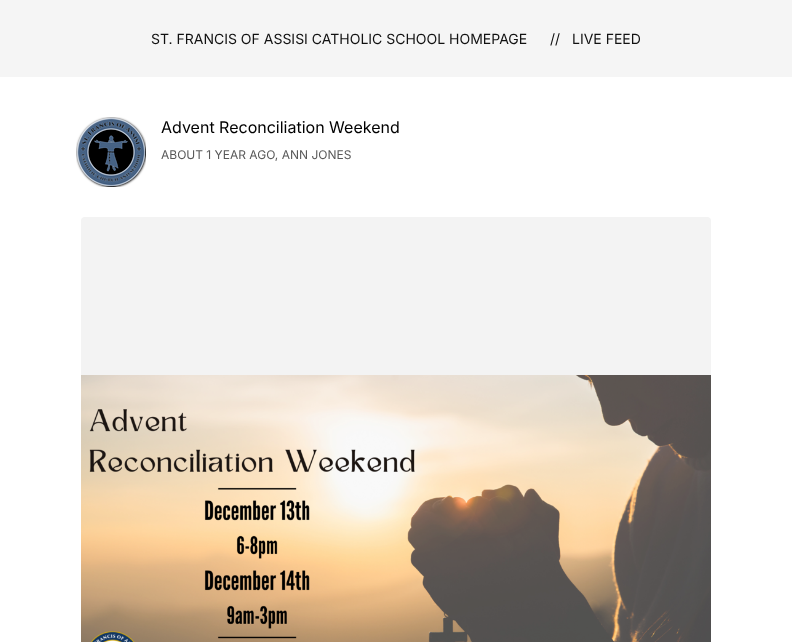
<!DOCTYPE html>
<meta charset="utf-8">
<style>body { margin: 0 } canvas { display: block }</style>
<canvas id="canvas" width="792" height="642"></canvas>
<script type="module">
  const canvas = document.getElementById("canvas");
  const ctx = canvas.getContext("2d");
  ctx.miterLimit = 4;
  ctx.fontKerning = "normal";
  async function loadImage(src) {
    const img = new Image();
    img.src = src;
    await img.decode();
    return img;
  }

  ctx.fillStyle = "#ffffff";
  ctx.fillRect(0, 0, 792, 642);
  ctx.fillStyle = "#f5f5f5";
  ctx.fillRect(0, 0, 792, 77);
  ctx.font = "14px Inter";
  ctx.fillStyle = "#111111";
  ctx.fillText("ST. FRANCIS OF ASSISI CATHOLIC SCHOOL HOMEPAGE", 151, 44);
  ctx.fillText("//", 550, 44);
  ctx.fillText("LIVE FEED", 572, 44);
  ctx.drawImage(await loadImage("img1.png"), 76, 117, 70, 70);
  ctx.font = "16px Inter";
  ctx.fillStyle = "#000000";
  ctx.fillText("Advent Reconciliation Weekend", 161, 133);
  ctx.font = "12px Inter";
  ctx.fillStyle = "#595959";
  ctx.fillText("ABOUT 1 YEAR AGO, ANN JONES", 161, 159);
  ctx.fillStyle = "#f3f3f3";
  ctx.beginPath();
  ctx.roundRect(81, 217, 630, 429, 4);
  ctx.fill();
  ctx.drawImage(await loadImage("img2.png"), 81, 375, 630, 267);
</script>
